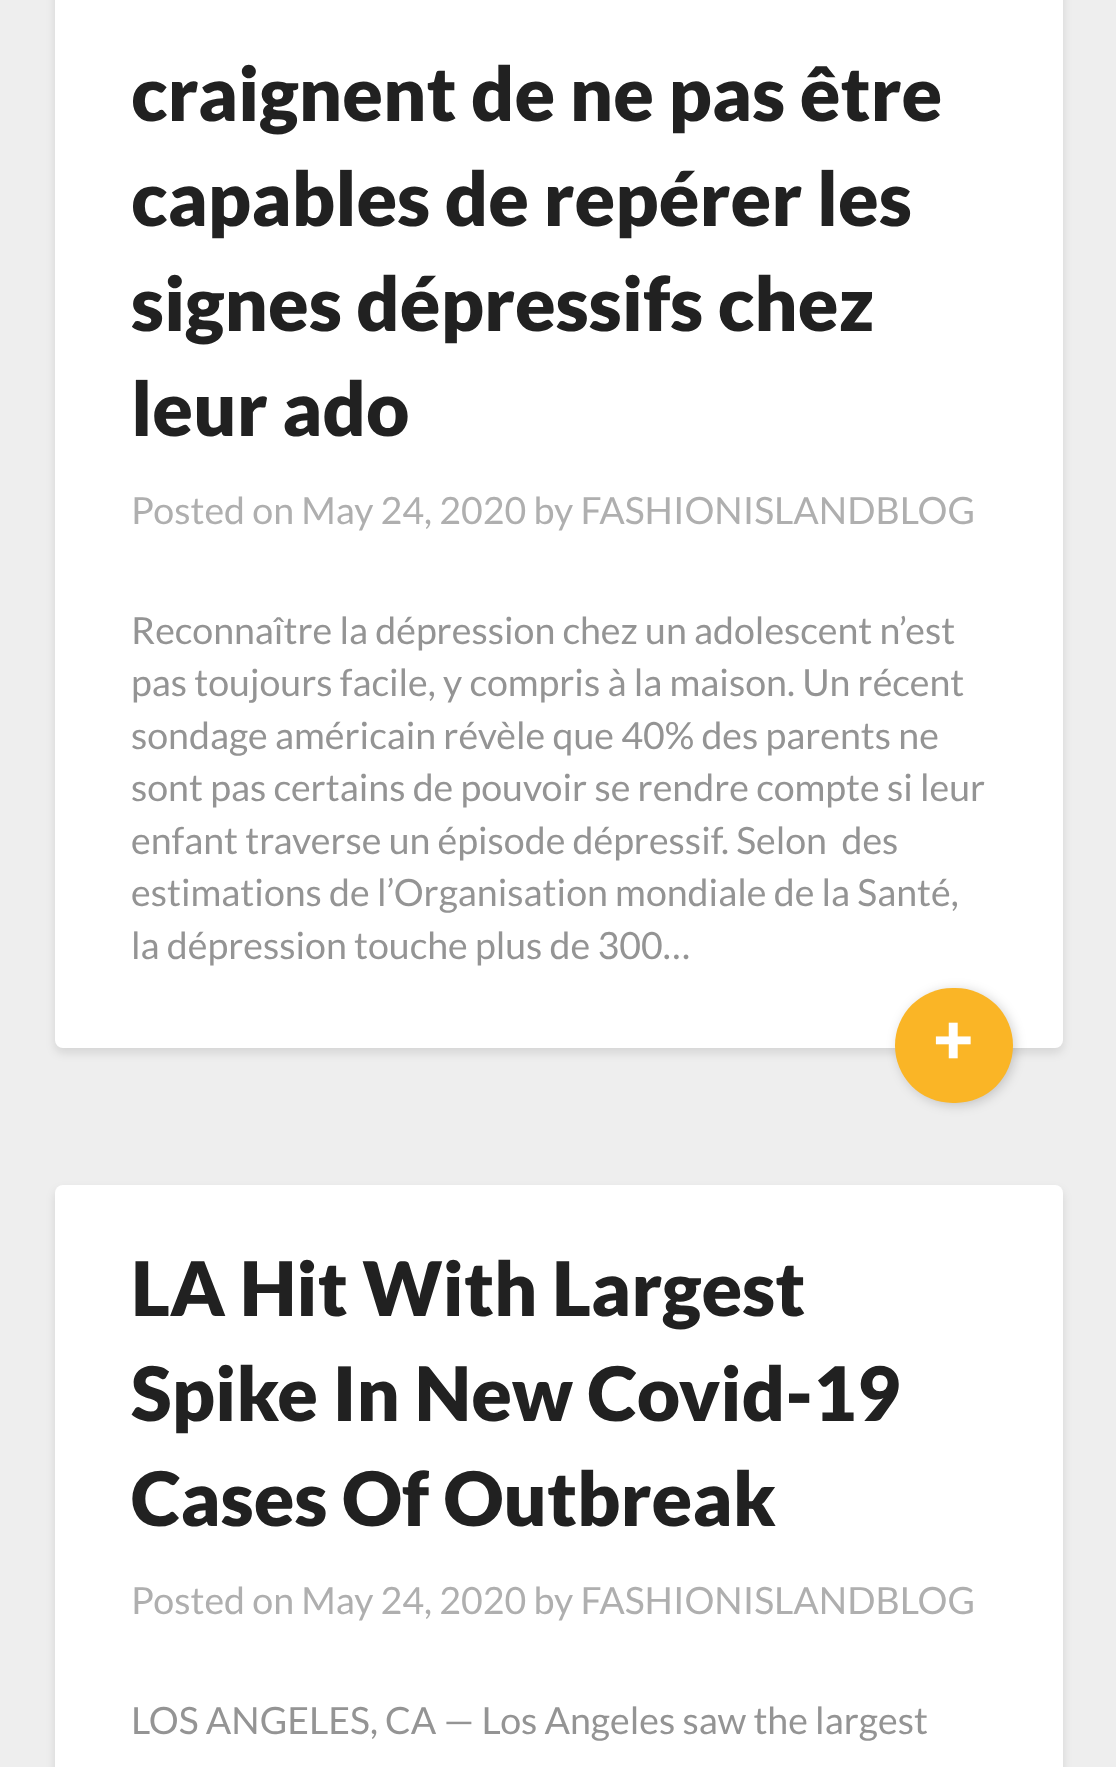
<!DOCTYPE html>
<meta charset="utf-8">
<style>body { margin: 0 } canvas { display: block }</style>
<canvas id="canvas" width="1116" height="1767"></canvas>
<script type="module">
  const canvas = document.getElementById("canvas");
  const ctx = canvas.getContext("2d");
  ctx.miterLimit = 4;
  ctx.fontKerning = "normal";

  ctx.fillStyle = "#eeeeee";
  ctx.fillRect(0, 0, 1116, 1767);
  ctx.fillStyle = "rgba(0, 0, 0, 0.1)";
  ctx.filter = "blur(5px)";
  ctx.beginPath();
  ctx.roundRect(55, -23, 1008, 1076, 8);
  ctx.fill();
  ctx.filter = "none";
  ctx.fillStyle = "#ffffff";
  ctx.beginPath();
  ctx.roundRect(55, -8, 1008, 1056, 8);
  ctx.fill();
  ctx.font = "900 75px Lato";
  ctx.fillStyle = "#212121";
  ctx.fillText("craignent de ne pas être", 131, 121);
  ctx.fillText("capables de repérer les", 131, 226);
  ctx.fillText("signes dépressifs chez", 131, 331);
  ctx.fillText("leur ado", 131, 436);
  ctx.font = "37.5px Lato";
  ctx.fillStyle = "#afafaf";
  ctx.fillText("Posted on May 24, 2020 by FASHIONISLANDBLOG", 131, 524);
  ctx.fillStyle = "#949494";
  ctx.fillText("Reconnaître la dépression chez un adolescent n’est", 131, 644);
  ctx.fillText("pas toujours facile, y compris à la maison. Un récent", 131, 696);
  ctx.fillText("sondage américain révèle que 40% des parents ne", 131, 749);
  ctx.fillText("sont pas certains de pouvoir se rendre compte si leur", 131, 801);
  ctx.fillText("enfant traverse un épisode dépressif. Selon  des", 131, 854);
  ctx.fillText("estimations de l’Organisation mondiale de la Santé,", 131, 906);
  ctx.fillText("la dépression touche plus de 300…", 131, 959);
  ctx.fillStyle = "rgba(0, 0, 0, 0.19)";
  ctx.filter = "blur(6px)";
  ctx.beginPath();
  ctx.roundRect(898, 990, 117, 115, 57.5);
  ctx.fill();
  ctx.filter = "none";
  ctx.fillStyle = "#fab526";
  ctx.beginPath();
  ctx.roundRect(895, 988, 118, 115, 57.5);
  ctx.fill();
  ctx.font = "900 70px Lato";
  ctx.fillStyle = "#ffffff";
  ctx.fillText("+", 933, 1064);
  ctx.fillStyle = "rgba(0, 0, 0, 0.1)";
  ctx.filter = "blur(5px)";
  ctx.beginPath();
  ctx.roundRect(55, 1190, 1008, 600, 8);
  ctx.fill();
  ctx.filter = "none";
  ctx.fillStyle = "#ffffff";
  ctx.beginPath();
  ctx.roundRect(55, 1185, 1008, 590, 8);
  ctx.fill();
  ctx.font = "900 75px Lato";
  ctx.fillStyle = "#212121";
  ctx.fillText("LA Hit With Largest", 131, 1316);
  ctx.fillText("Spike In New Covid-19", 131, 1421);
  ctx.fillText("Cases Of Outbreak", 131, 1526);
  ctx.font = "37.5px Lato";
  ctx.fillStyle = "#afafaf";
  ctx.fillText("Posted on May 24, 2020 by FASHIONISLANDBLOG", 131, 1614);
  ctx.fillStyle = "#949494";
  ctx.fillText("LOS ANGELES, CA — Los Angeles saw the largest", 131, 1734);
</script>
